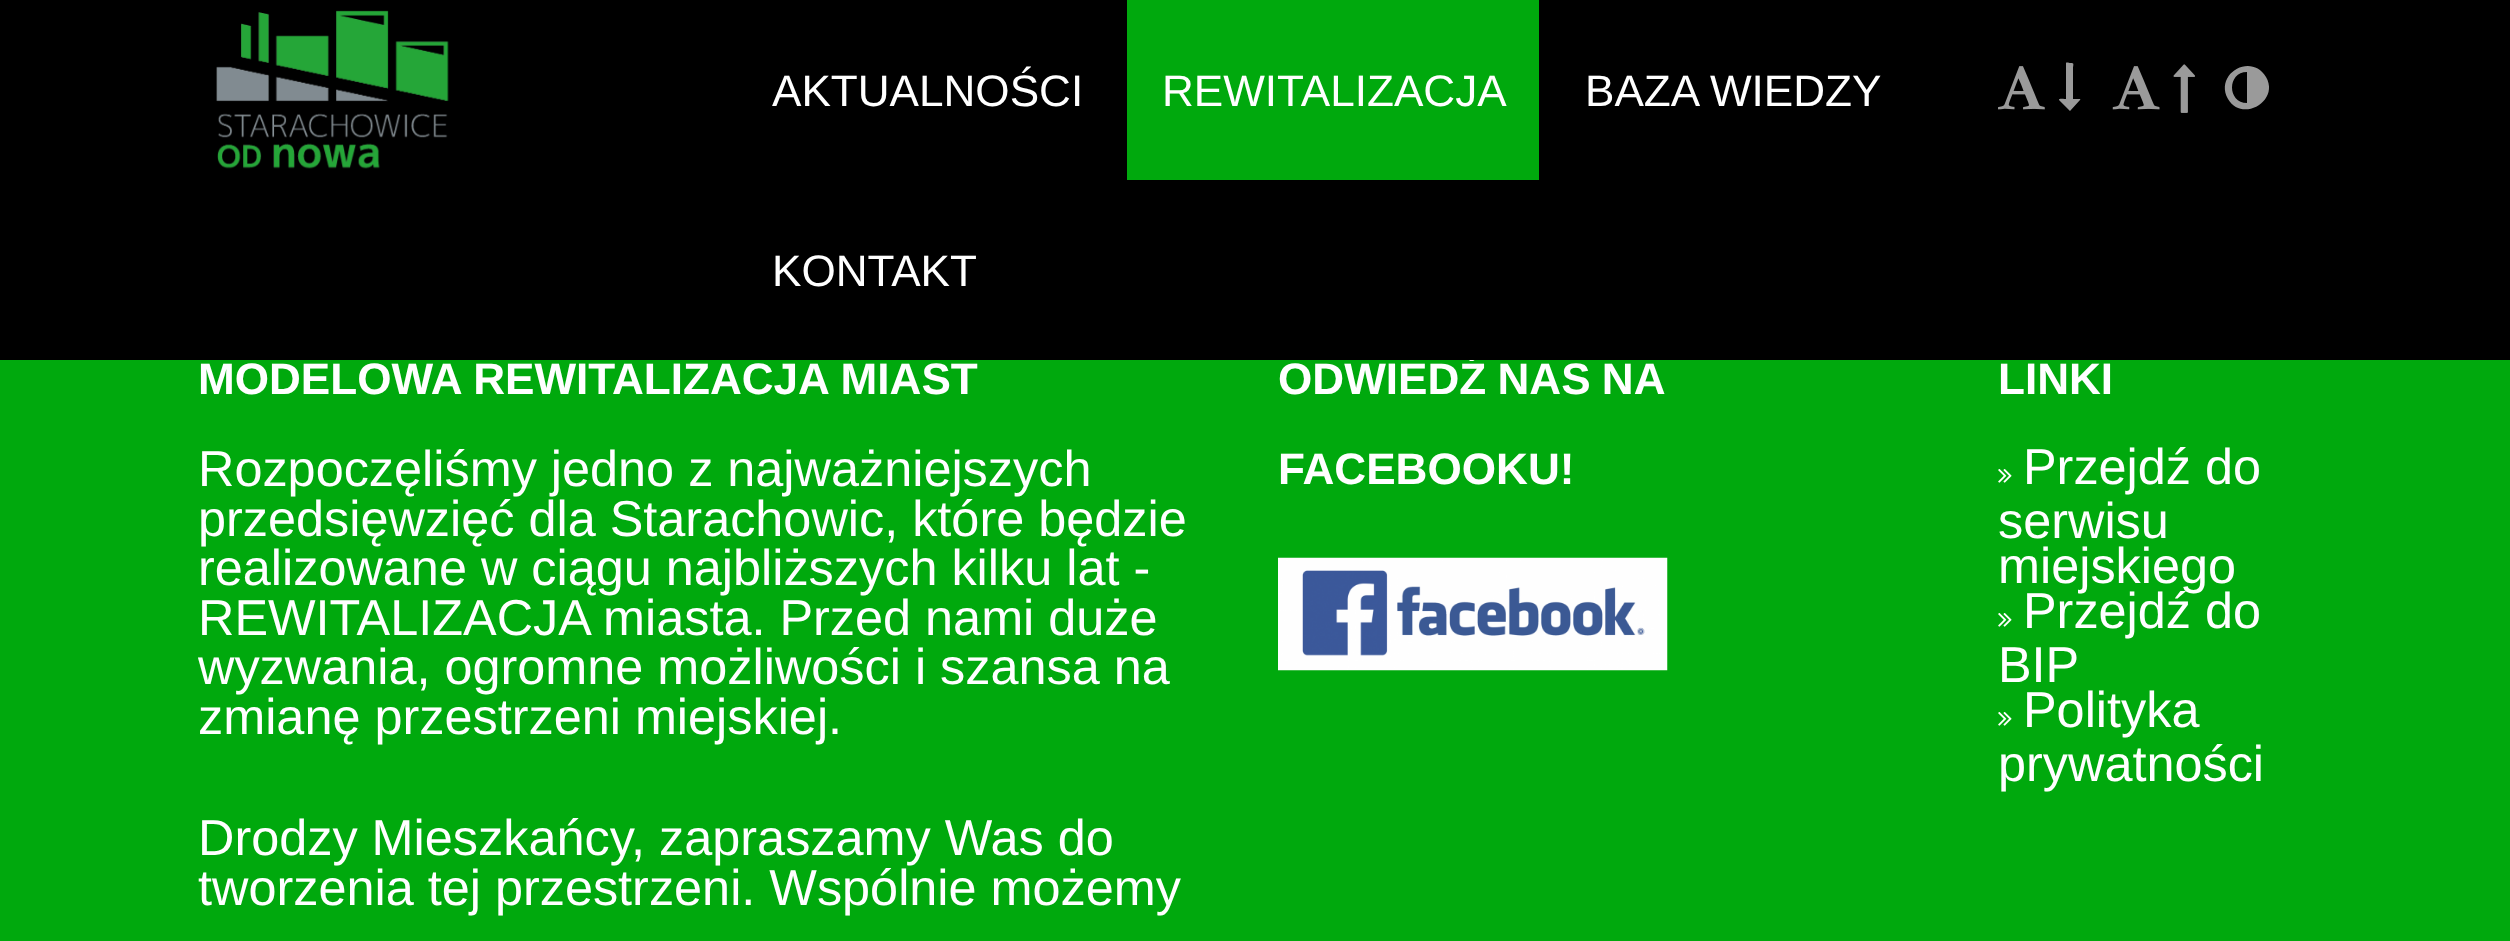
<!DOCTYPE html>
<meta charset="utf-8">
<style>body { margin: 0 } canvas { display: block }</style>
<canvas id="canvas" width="2510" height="941"></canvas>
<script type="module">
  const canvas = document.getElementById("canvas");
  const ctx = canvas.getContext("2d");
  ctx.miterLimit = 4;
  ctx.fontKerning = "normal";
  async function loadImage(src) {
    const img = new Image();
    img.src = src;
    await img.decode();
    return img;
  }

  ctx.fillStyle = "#00a90d";
  ctx.fillRect(0, 0, 2510, 941);
  ctx.wordSpacing = "-1px";
  ctx.font = "bold 44.1px Liberation Sans";
  ctx.fillStyle = "#ffffff";
  ctx.fillText("ODWIEDŹ NAS NA", 1278, 394);
  ctx.fillStyle = "#000000";
  ctx.fillRect(0, 0, 2510, 360);
  ctx.drawImage(await loadImage("img1.png"), 216, 10, 233, 159);
  ctx.wordSpacing = "0px";
  ctx.font = "44.1px Liberation Sans";
  ctx.fillStyle = "#ffffff";
  ctx.fillText("AKTUALNOŚCI", 772, 106);
  ctx.fillStyle = "#00a90d";
  ctx.fillRect(1127, 0, 412, 180);
  ctx.fillStyle = "#ffffff";
  ctx.fillText("REWITALIZACJA", 1162, 106);
  ctx.fillText("BAZA WIEDZY", 1585, 106);
  ctx.fillText("KONTAKT", 772, 286);
  ctx.drawImage(await loadImage("img2.png"), 1998, 66, 47, 44);
  ctx.fillStyle = "#9a9a9a";
  ctx.beginPath();
  ctx.moveTo(2079, 99);
  ctx.bezierCurveTo(2080, 99, 2081, 99, 2080, 100);
  ctx.lineTo(2070, 111);
  ctx.lineTo(2059, 100);
  ctx.bezierCurveTo(2058, 98, 2065, 99, 2066, 99);
  ctx.lineTo(2066, 63);
  ctx.bezierCurveTo(2066, 62, 2070, 63, 2070, 63);
  ctx.bezierCurveTo(2075, 63, 2073, 64, 2073, 69);
  ctx.lineTo(2073, 99);
  ctx.closePath();
  ctx.fill();
  ctx.drawImage(await loadImage("img3.png"), 2112, 66, 48, 44);
  ctx.drawImage(await loadImage("img4.png"), 2173, 64, 22, 49);
  ctx.beginPath();
  ctx.moveTo(2247, 103);
  ctx.lineTo(2247, 72);
  ctx.bezierCurveTo(2227, 72, 2227, 103, 2247, 103);
  ctx.closePath();
  ctx.moveTo(2266, 77);
  ctx.bezierCurveTo(2280, 101, 2242, 123, 2228, 99);
  ctx.bezierCurveTo(2214, 74, 2251, 52, 2266, 77);
  ctx.closePath();
  ctx.fill();
  ctx.font = "bold 44.1px Liberation Sans";
  ctx.fillStyle = "#ffffff";
  ctx.fillText("MODELOWA REWITALIZACJA MIAST", 198, 394);
  ctx.font = "50.4px Liberation Sans";
  ctx.fillText("Rozpoczęliśmy jedno z najważniejszych", 198, 486);
  ctx.fillText("przedsięwzięć dla Starachowic, które będzie", 198, 536);
  ctx.fillText("realizowane w ciągu najbliższych kilku lat -", 198, 585);
  ctx.fillText("REWITALIZACJA miasta. Przed nami duże", 198, 635);
  ctx.fillText("wyzwania, ogromne możliwości i szansa na", 198, 684);
  ctx.fillText("zmianę przestrzeni miejskiej.", 198, 734);
  ctx.fillText("Drodzy Mieszkańcy, zapraszamy Was do", 198, 855);
  ctx.fillText("tworzenia tej przestrzeni. Wspólnie możemy", 198, 905);
  ctx.font = "bold 44.1px Liberation Sans";
  ctx.fillText("FACEBOOKU!", 1278, 484);
  ctx.drawImage(await loadImage("img5.png"), 1278, 557, 390, 114);
  ctx.fillText("LINKI", 1998, 394);
  ctx.drawImage(await loadImage("img6.png"), 1998, 469, 14, 14);
  ctx.font = "50.4px Liberation Sans";
  ctx.fillText("Przejdź do", 2023, 484);
  ctx.fillText("serwisu", 1998, 538);
  ctx.fillText("miejskiego", 1998, 583);
  ctx.drawImage(await loadImage("img6.png"), 1998, 613, 14, 14);
  ctx.fillText("Przejdź do", 2023, 628);
  ctx.fillText("BIP", 1998, 682);
  ctx.drawImage(await loadImage("img6.png"), 1998, 712, 14, 14);
  ctx.fillText("Polityka", 2023, 727);
  ctx.fillText("prywatności", 1998, 781);
</script>
